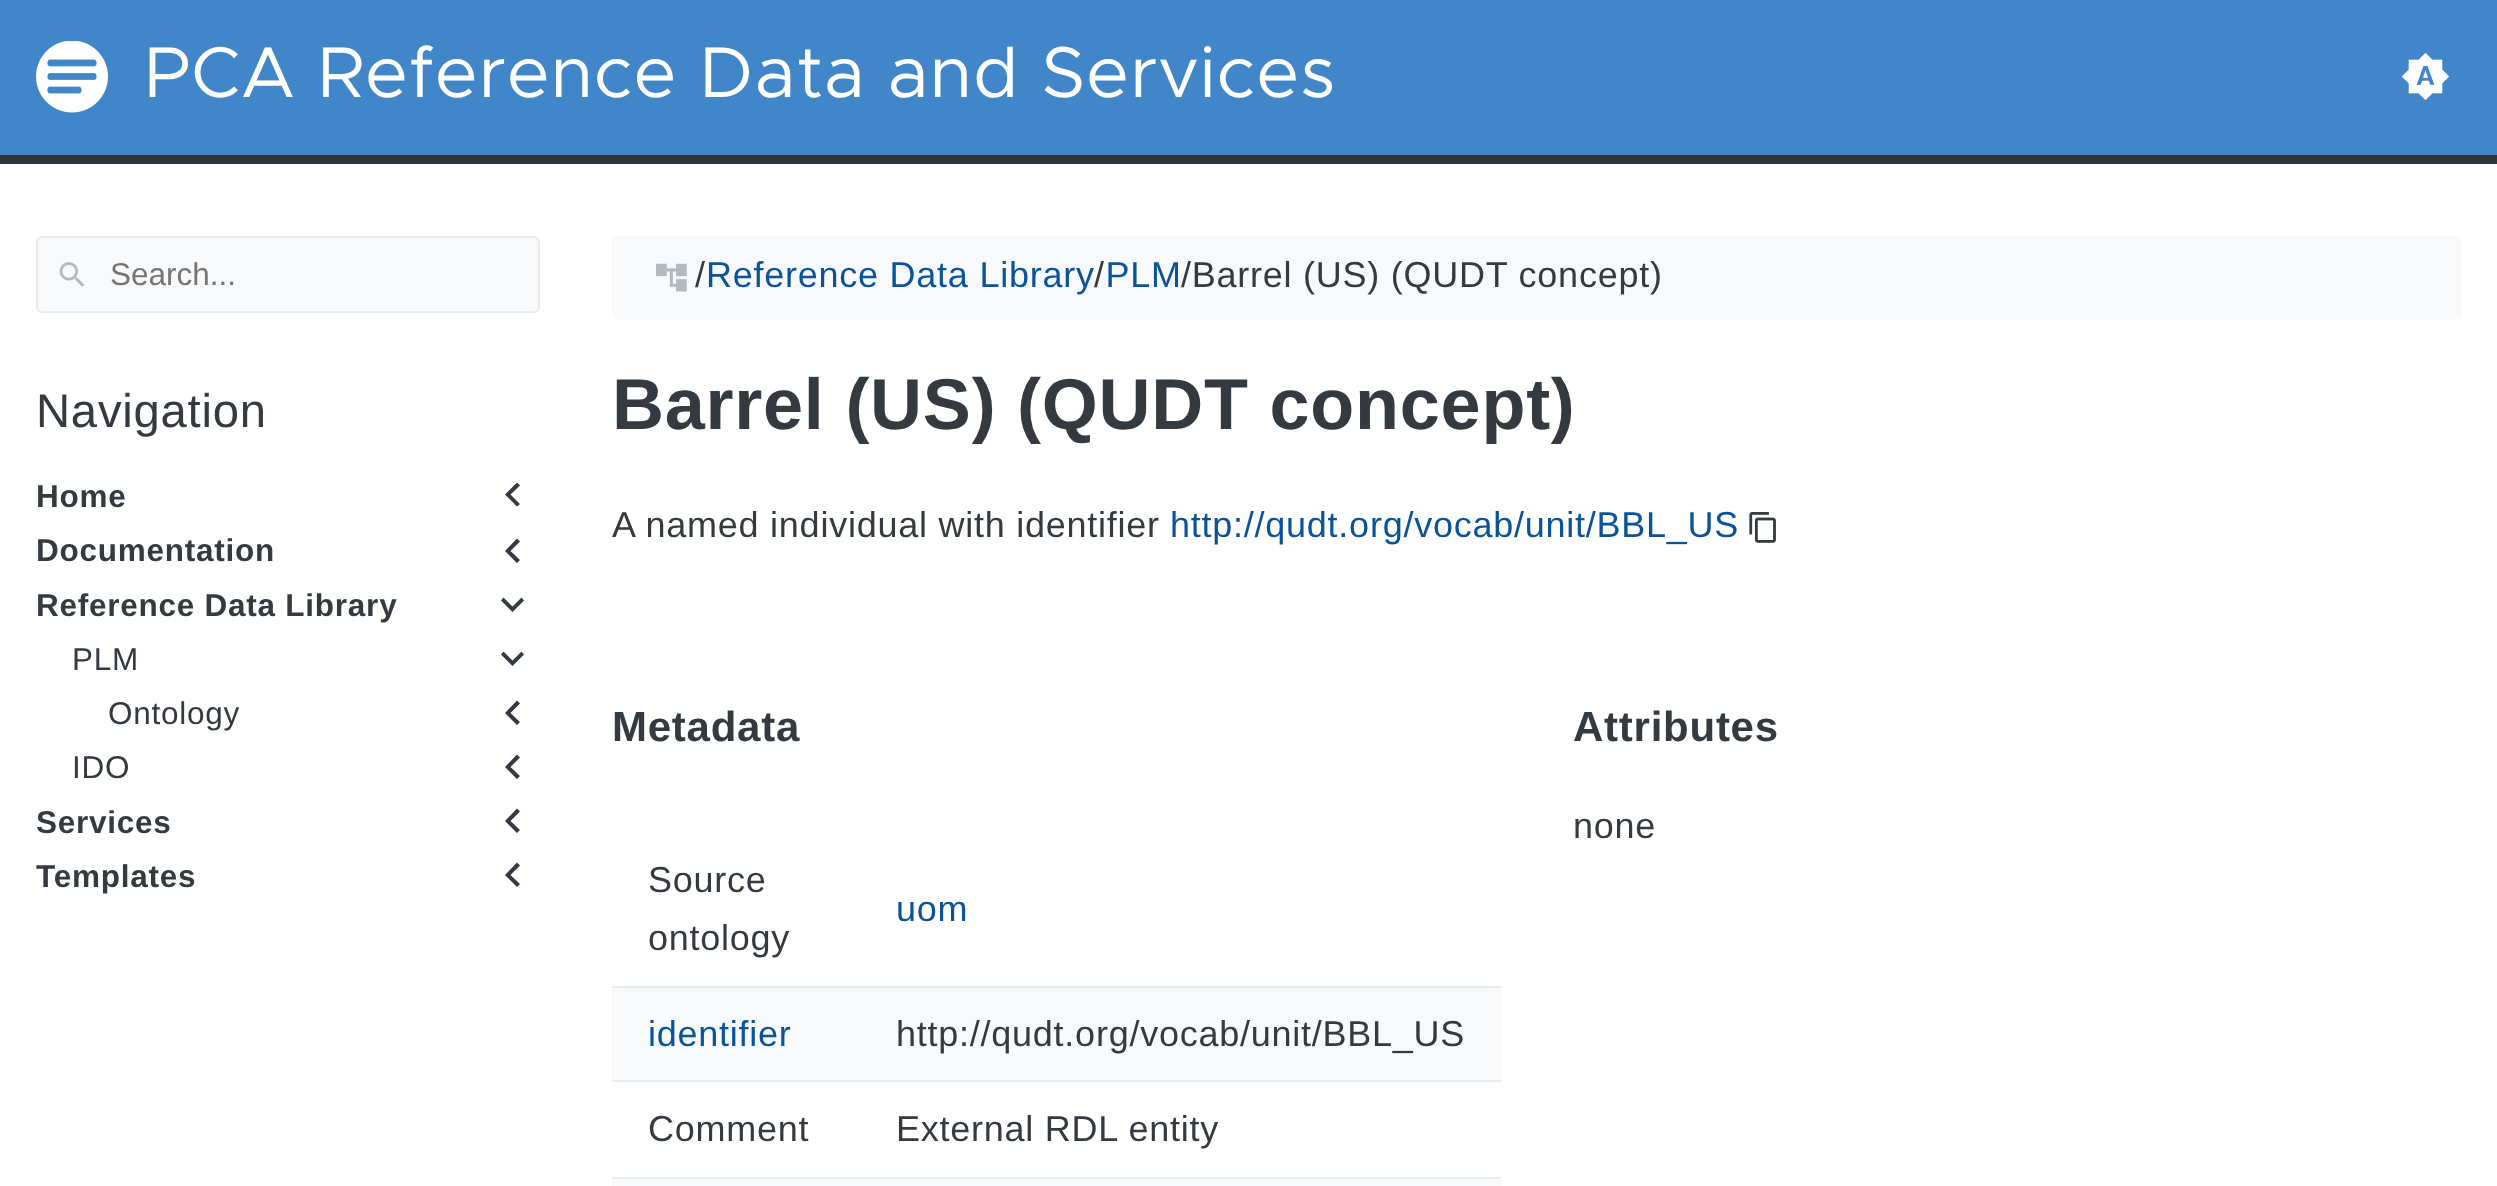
<!DOCTYPE html>
<meta charset="utf-8">
<style>body { margin: 0 } canvas { display: block }</style>
<canvas id="canvas" width="2497" height="1186"></canvas>
<script type="module">
  const canvas = document.getElementById("canvas");
  const ctx = canvas.getContext("2d");
  ctx.miterLimit = 4;
  ctx.fontKerning = "normal";
  async function loadImage(src) {
    const img = new Image();
    img.src = src;
    await img.decode();
    return img;
  }

  ctx.fillStyle = "#ffffff";
  ctx.fillRect(0, 0, 2497, 1186);
  ctx.fillStyle = "#4186c9";
  ctx.fillRect(0, 0, 2497, 155);
  ctx.fillStyle = "#2f333e";
  ctx.fillRect(0, 155, 2497, 9);
  ctx.drawImage(await loadImage("img1.png"), 36, 41, 72, 72);
  ctx.letterSpacing = "0.75px";
  ctx.font = "72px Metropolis";
  ctx.fillStyle = "#ffffff";
  ctx.fillText("PCA Reference Data and Services", 144, 97);
  ctx.drawImage(await loadImage("img2.png"), 2401, 52, 49, 49);
  ctx.fillStyle = "#f8f9fa";
  ctx.beginPath();
  ctx.roundRect(37, 237, 502, 75, 5);
  ctx.fill();
  ctx.strokeStyle = "#e9ecef";
  ctx.lineWidth = 2;
  ctx.stroke();
  ctx.drawImage(await loadImage("img3.png"), 59, 262, 26, 25);
  ctx.letterSpacing = "0px";
  ctx.font = "31.5px Liberation Sans";
  ctx.fillStyle = "#757575";
  ctx.fillText("Search...", 110, 285);
  ctx.letterSpacing = "0.75px";
  ctx.font = "47.25px Liberation Sans";
  ctx.fillStyle = "#343a40";
  ctx.fillText("Navigation", 36, 427);
  ctx.font = "bold 31.5px Liberation Sans";
  ctx.fillText("Home", 36, 507);
  ctx.beginPath();
  ctx.moveTo(520, 504);
  ctx.lineTo(517, 506.5);
  ctx.lineTo(505, 494.5);
  ctx.lineTo(517, 482.5);
  ctx.lineTo(520, 485.5);
  ctx.lineTo(510.5, 494.5);
  ctx.closePath();
  ctx.fill();
  ctx.fillText("Documentation", 36, 561);
  ctx.beginPath();
  ctx.moveTo(520, 560);
  ctx.lineTo(517, 563);
  ctx.lineTo(505, 551);
  ctx.lineTo(517, 538.5);
  ctx.lineTo(520, 541.5);
  ctx.lineTo(510.5, 551);
  ctx.closePath();
  ctx.fill();
  ctx.fillText("Reference Data Library", 36, 616);
  ctx.beginPath();
  ctx.moveTo(503.5, 597.5);
  ctx.lineTo(512.5, 606.5);
  ctx.lineTo(521.5, 597.5);
  ctx.lineTo(524, 600.5);
  ctx.lineTo(512.5, 612);
  ctx.lineTo(501, 600.5);
  ctx.closePath();
  ctx.fill();
  ctx.font = "31.5px Liberation Sans";
  ctx.fillText("PLM", 72, 670);
  ctx.beginPath();
  ctx.moveTo(503.5, 651.5);
  ctx.lineTo(512.5, 660.5);
  ctx.lineTo(521.5, 651.5);
  ctx.lineTo(524, 654.5);
  ctx.lineTo(512.5, 666);
  ctx.lineTo(501, 654.5);
  ctx.closePath();
  ctx.fill();
  ctx.fillText("Ontology", 108, 724);
  ctx.beginPath();
  ctx.moveTo(520, 722);
  ctx.lineTo(517, 725);
  ctx.lineTo(505, 713);
  ctx.lineTo(517, 700.5);
  ctx.lineTo(520, 703.5);
  ctx.lineTo(510.5, 713);
  ctx.closePath();
  ctx.fill();
  ctx.fillText("IDO", 72, 778);
  ctx.beginPath();
  ctx.moveTo(520, 776);
  ctx.lineTo(517, 779);
  ctx.lineTo(505, 767);
  ctx.lineTo(517, 754.5);
  ctx.lineTo(520, 757.5);
  ctx.lineTo(510.5, 767);
  ctx.closePath();
  ctx.fill();
  ctx.font = "bold 31.5px Liberation Sans";
  ctx.fillText("Services", 36, 833);
  ctx.beginPath();
  ctx.moveTo(520, 830);
  ctx.lineTo(517, 833);
  ctx.lineTo(505, 821);
  ctx.lineTo(517, 808.5);
  ctx.lineTo(520, 811.5);
  ctx.lineTo(510.5, 821);
  ctx.closePath();
  ctx.fill();
  ctx.fillText("Templates", 36, 887);
  ctx.beginPath();
  ctx.moveTo(520, 884);
  ctx.lineTo(517, 887);
  ctx.lineTo(505, 875);
  ctx.lineTo(517, 862.5);
  ctx.lineTo(520, 865.5);
  ctx.lineTo(510.5, 875);
  ctx.closePath();
  ctx.fill();
  ctx.fillStyle = "#f8f9fa";
  ctx.beginPath();
  ctx.roundRect(612, 236, 1850, 84, 6);
  ctx.fill();
  ctx.font = "36px Liberation Sans";
  ctx.fillStyle = "#343a40";
  ctx.fillText("/", 695, 287);
  ctx.fillStyle = "#0a539a";
  ctx.fillText("Reference Data Library PLM", 706, 287);
  ctx.drawImage(await loadImage("img4.png"), 656, 263, 31, 29);
  ctx.fillStyle = "#343a40";
  ctx.fillText("/", 1094, 287);
  ctx.fillText("/Barrel (US) (QUDT concept)", 1181, 287);
  ctx.font = "bold 72px Liberation Sans";
  ctx.fillText("Barrel (US) (QUDT concept)", 612, 429);
  ctx.font = "36px Liberation Sans";
  ctx.fillText("A named individual with identifier", 612, 537);
  ctx.fillStyle = "#0a539a";
  ctx.fillText("http://qudt.org/vocab/unit/BBL_US", 1170, 537);
  ctx.drawImage(await loadImage("img5.png"), 1749, 512, 27, 31);
  ctx.font = "bold 42px Liberation Sans";
  ctx.fillStyle = "#343a40";
  ctx.fillText("Metadata", 612, 741);
  ctx.fillStyle = "#e9ecef";
  ctx.fillRect(612, 986, 889, 2);
  ctx.font = "36px Liberation Sans";
  ctx.fillStyle = "#343a40";
  ctx.fillText("Source", 648, 892);
  ctx.fillText("ontology", 648, 950);
  ctx.fillStyle = "#0a539a";
  ctx.fillText("uom", 896, 921);
  ctx.fillStyle = "#f8f9fa";
  ctx.fillRect(612, 988, 889, 92);
  ctx.fillStyle = "#e9ecef";
  ctx.fillRect(612, 1080, 889, 2);
  ctx.fillStyle = "#0a539a";
  ctx.fillText("identifier", 648, 1046);
  ctx.fillStyle = "#343a40";
  ctx.fillText("http://qudt.org/vocab/unit/BBL_US", 896, 1046);
  ctx.fillStyle = "#e9ecef";
  ctx.fillRect(612, 1177, 889, 2);
  ctx.fillStyle = "#343a40";
  ctx.fillText("Comment", 648, 1141);
  ctx.fillText("External RDL entity", 896, 1141);
  ctx.fillStyle = "#f8f9fa";
  ctx.fillRect(612, 1179, 889, 7);
  ctx.font = "bold 42px Liberation Sans";
  ctx.fillStyle = "#343a40";
  ctx.fillText("Attributes", 1573, 741);
  ctx.font = "36px Liberation Sans";
  ctx.fillText("none", 1573, 838);
</script>
